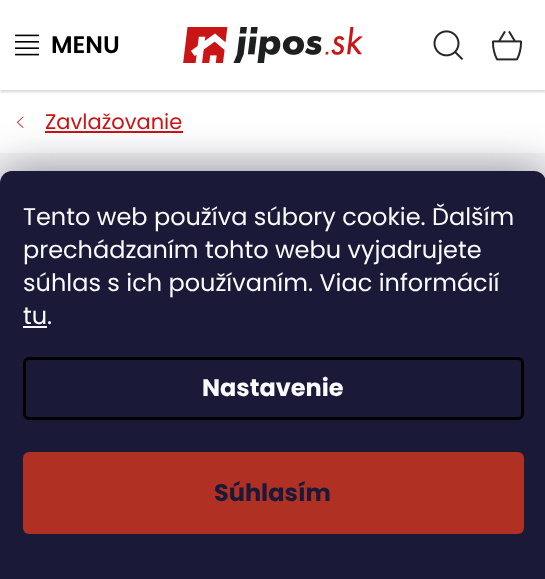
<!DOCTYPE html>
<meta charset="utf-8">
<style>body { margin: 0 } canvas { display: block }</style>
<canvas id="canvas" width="545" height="579"></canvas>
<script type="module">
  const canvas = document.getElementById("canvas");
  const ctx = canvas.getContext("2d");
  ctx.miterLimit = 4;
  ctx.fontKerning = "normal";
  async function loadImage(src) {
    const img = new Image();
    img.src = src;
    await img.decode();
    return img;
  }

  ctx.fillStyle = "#ffffff";
  ctx.fillRect(0, 0, 545, 579);
  ctx.save();
  ctx.beginPath();
  ctx.rect(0, 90, 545, 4);
  ctx.clip();
  ctx.fillStyle = "rgba(0, 0, 0, 0.16)";
  ctx.filter = "blur(1.5px)";
  ctx.beginPath();
  ctx.rect(0, 2, 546, 90);
  ctx.fill();
  ctx.filter = "none";
  ctx.restore();
  ctx.drawImage(await loadImage("img1.png"), 15, 34, 24, 22);
  ctx.font = "600 24px Poppins";
  ctx.fillStyle = "#000000";
  ctx.fillText("MENU", 51, 53);
  ctx.drawImage(await loadImage("img2.png"), 433, 30, 31, 30);
  ctx.drawImage(await loadImage("img3.png"), 492, 31, 30, 30);
  ctx.drawImage(await loadImage("img4.png"), 183, 27, 180, 36);
  ctx.drawImage(await loadImage("img5.png"), 16, 116, 8, 12);
  ctx.font = "21px Poppins";
  ctx.fillStyle = "#c91516";
  ctx.fillText("Zavlažovanie", 45, 129);
  ctx.fillRect(45, 131, 138, 2);
  ctx.fillStyle = "#f5f5f5";
  ctx.fillRect(0, 153, 545, 30);
  ctx.fillStyle = "rgba(27, 25, 57, 0.5)";
  ctx.filter = "blur(22.5px)";
  ctx.beginPath();
  ctx.roundRect(0, 171, 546, 408, 12);
  ctx.fill();
  ctx.filter = "none";
  ctx.fillStyle = "#1a1937";
  ctx.beginPath();
  ctx.moveTo(12, 171);
  ctx.lineTo(534, 171);
  ctx.bezierCurveTo(540.5, 171, 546, 176.5, 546, 183);
  ctx.lineTo(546, 579);
  ctx.lineTo(0, 579);
  ctx.lineTo(0, 183);
  ctx.bezierCurveTo(0, 176.5, 5.5, 171, 12, 171);
  ctx.closePath();
  ctx.fill();
  ctx.font = "24px Poppins";
  ctx.fillStyle = "#f8fafb";
  ctx.fillText("Tento web používa súbory cookie. Ďalším", 23, 225);
  ctx.fillText("prechádzaním tohto webu vyjadrujete", 23, 258);
  ctx.fillText("súhlas s ich používaním. Viac informácií", 23, 291);
  ctx.fillText("tu.", 23, 324);
  ctx.fillRect(23, 326, 24, 2);
  ctx.beginPath();
  ctx.roundRect(24.5, 358.5, 498, 60, 4.5);
  ctx.strokeStyle = "#000000";
  ctx.lineWidth = 3;
  ctx.stroke();
  ctx.font = "bold 24px Poppins";
  ctx.fillText("Nastavenie", 202, 396);
  ctx.fillStyle = "#b13024";
  ctx.beginPath();
  ctx.roundRect(23, 452, 501, 82, 6);
  ctx.fill();
  ctx.fillStyle = "#1a1937";
  ctx.fillText("Súhlasím", 214, 501);
</script>
